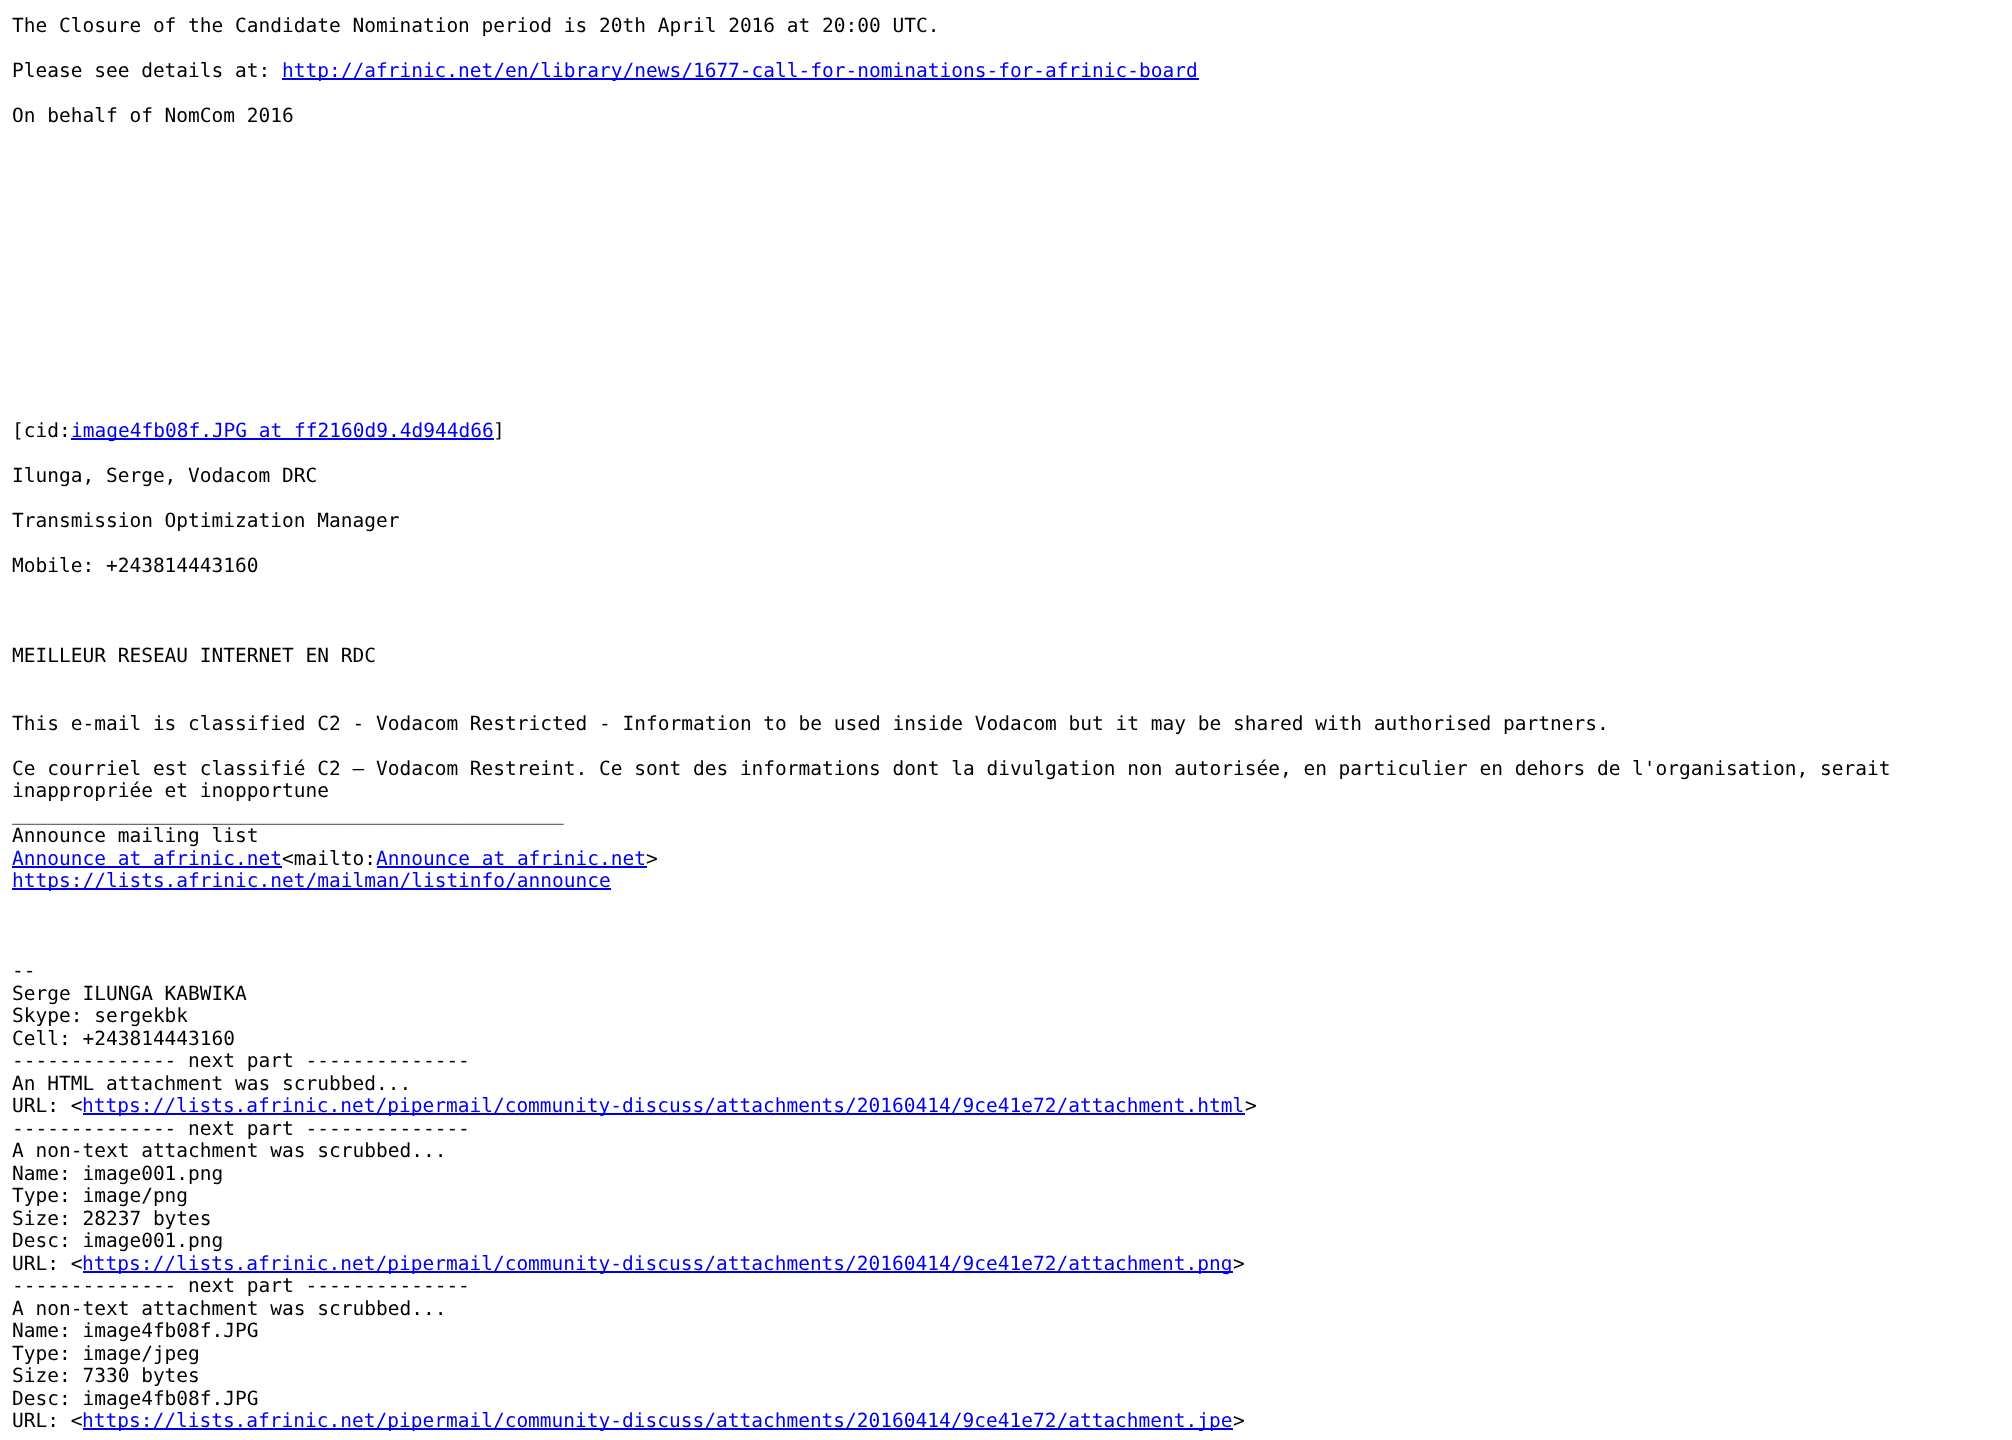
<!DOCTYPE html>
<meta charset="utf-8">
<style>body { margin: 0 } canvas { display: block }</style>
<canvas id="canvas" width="2012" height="1440"></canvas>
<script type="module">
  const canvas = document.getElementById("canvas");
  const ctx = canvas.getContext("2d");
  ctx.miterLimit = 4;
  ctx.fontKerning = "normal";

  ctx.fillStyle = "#ffffff";
  ctx.fillRect(0, 0, 2012, 1440);
  ctx.font = "19.5px DejaVu Sans Mono";
  ctx.fillStyle = "#000000";
  ctx.fillText("The Closure of the Candidate Nomination period is 20th April 2016 at 20:00 UTC.", 12, 32);
  ctx.fillText("Please see details at:", 12, 77);
  ctx.fillStyle = "#0000ee";
  ctx.fillRect(282, 78, 917, 2);
  ctx.fillText("http://afrinic.net/en/library/news/1677-call-for-nominations-for-afrinic-board", 282, 77);
  ctx.fillStyle = "#000000";
  ctx.fillText("On behalf of NomCom 2016", 12, 122);
  ctx.fillText("[cid:", 12, 437);
  ctx.fillStyle = "#0000ee";
  ctx.fillRect(71, 438, 423, 2);
  ctx.fillText("image4fb08f.JPG at ff2160d9.4d944d66", 71, 437);
  ctx.fillStyle = "#000000";
  ctx.fillText("]", 493, 437);
  ctx.fillText("Ilunga, Serge, Vodacom DRC", 12, 482);
  ctx.fillText("Transmission Optimization Manager", 12, 527);
  ctx.fillText("Mobile: +243814443160", 12, 572);
  ctx.fillText("MEILLEUR RESEAU INTERNET EN RDC", 12, 662);
  ctx.fillText("This e-mail is classified C2 - Vodacom Restricted - Information to be used inside Vodacom but it may be shared with authorised partners.", 12, 730);
  ctx.fillText("Ce courriel est classifié C2 – Vodacom Restreint. Ce sont des informations dont la divulgation non autorisée, en particulier en dehors de l'organisation, serait", 12, 775);
  ctx.fillText("inappropriée et inopportune", 12, 797);
  ctx.fillText("_______________________________________________", 12, 820);
  ctx.fillText("Announce mailing list", 12, 842);
  ctx.fillStyle = "#0000ee";
  ctx.fillText("Announce at afrinic.net", 12, 865);
  ctx.fillRect(12, 866, 270, 2);
  ctx.fillStyle = "#000000";
  ctx.fillText("<mailto:", 282, 865);
  ctx.fillStyle = "#0000ee";
  ctx.fillText("Announce at afrinic.net", 376, 865);
  ctx.fillRect(377, 866, 270, 2);
  ctx.fillStyle = "#000000";
  ctx.fillText(">", 646, 865);
  ctx.fillStyle = "#0000ee";
  ctx.fillRect(12, 888, 599, 2);
  ctx.fillText("https://lists.afrinic.net/mailman/listinfo/announce", 12, 887);
  ctx.fillStyle = "#000000";
  ctx.fillText("--", 12, 977);
  ctx.fillText("Serge ILUNGA KABWIKA", 12, 1000);
  ctx.fillText("Skype: sergekbk", 12, 1022);
  ctx.fillText("Cell: +243814443160", 12, 1045);
  ctx.fillText("-------------- next part --------------", 12, 1067);
  ctx.fillText("An HTML attachment was scrubbed...", 12, 1090);
  ctx.fillText("URL: <", 12, 1112);
  ctx.fillStyle = "#0000ee";
  ctx.fillRect(83, 1113, 1162, 2);
  ctx.fillText("https://lists.afrinic.net/pipermail/community-discuss/attachments/20160414/9ce41e72/attachment.html", 82, 1112);
  ctx.fillStyle = "#000000";
  ctx.fillText(">", 1245, 1112);
  ctx.fillText("-------------- next part --------------", 12, 1135);
  ctx.fillText("A non-text attachment was scrubbed...", 12, 1157);
  ctx.fillText("Name: image001.png", 12, 1180);
  ctx.fillText("Type: image/png", 12, 1202);
  ctx.fillText("Size: 28237 bytes", 12, 1225);
  ctx.fillText("Desc: image001.png", 12, 1247);
  ctx.fillText("URL: <", 12, 1270);
  ctx.fillStyle = "#0000ee";
  ctx.fillRect(83, 1271, 1150, 2);
  ctx.fillText("https://lists.afrinic.net/pipermail/community-discuss/attachments/20160414/9ce41e72/attachment.png", 82, 1270);
  ctx.fillStyle = "#000000";
  ctx.fillText(">", 1233, 1270);
  ctx.fillText("-------------- next part --------------", 12, 1292);
  ctx.fillText("A non-text attachment was scrubbed...", 12, 1315);
  ctx.fillText("Name: image4fb08f.JPG", 12, 1337);
  ctx.fillText("Type: image/jpeg", 12, 1360);
  ctx.fillText("Size: 7330 bytes", 12, 1382);
  ctx.fillText("Desc: image4fb08f.JPG", 12, 1405);
  ctx.fillText("URL: <", 12, 1427);
  ctx.fillStyle = "#0000ee";
  ctx.fillRect(83, 1428, 1150, 2);
  ctx.fillText("https://lists.afrinic.net/pipermail/community-discuss/attachments/20160414/9ce41e72/attachment.jpe", 82, 1427);
  ctx.fillStyle = "#000000";
  ctx.fillText(">", 1233, 1427);
</script>
